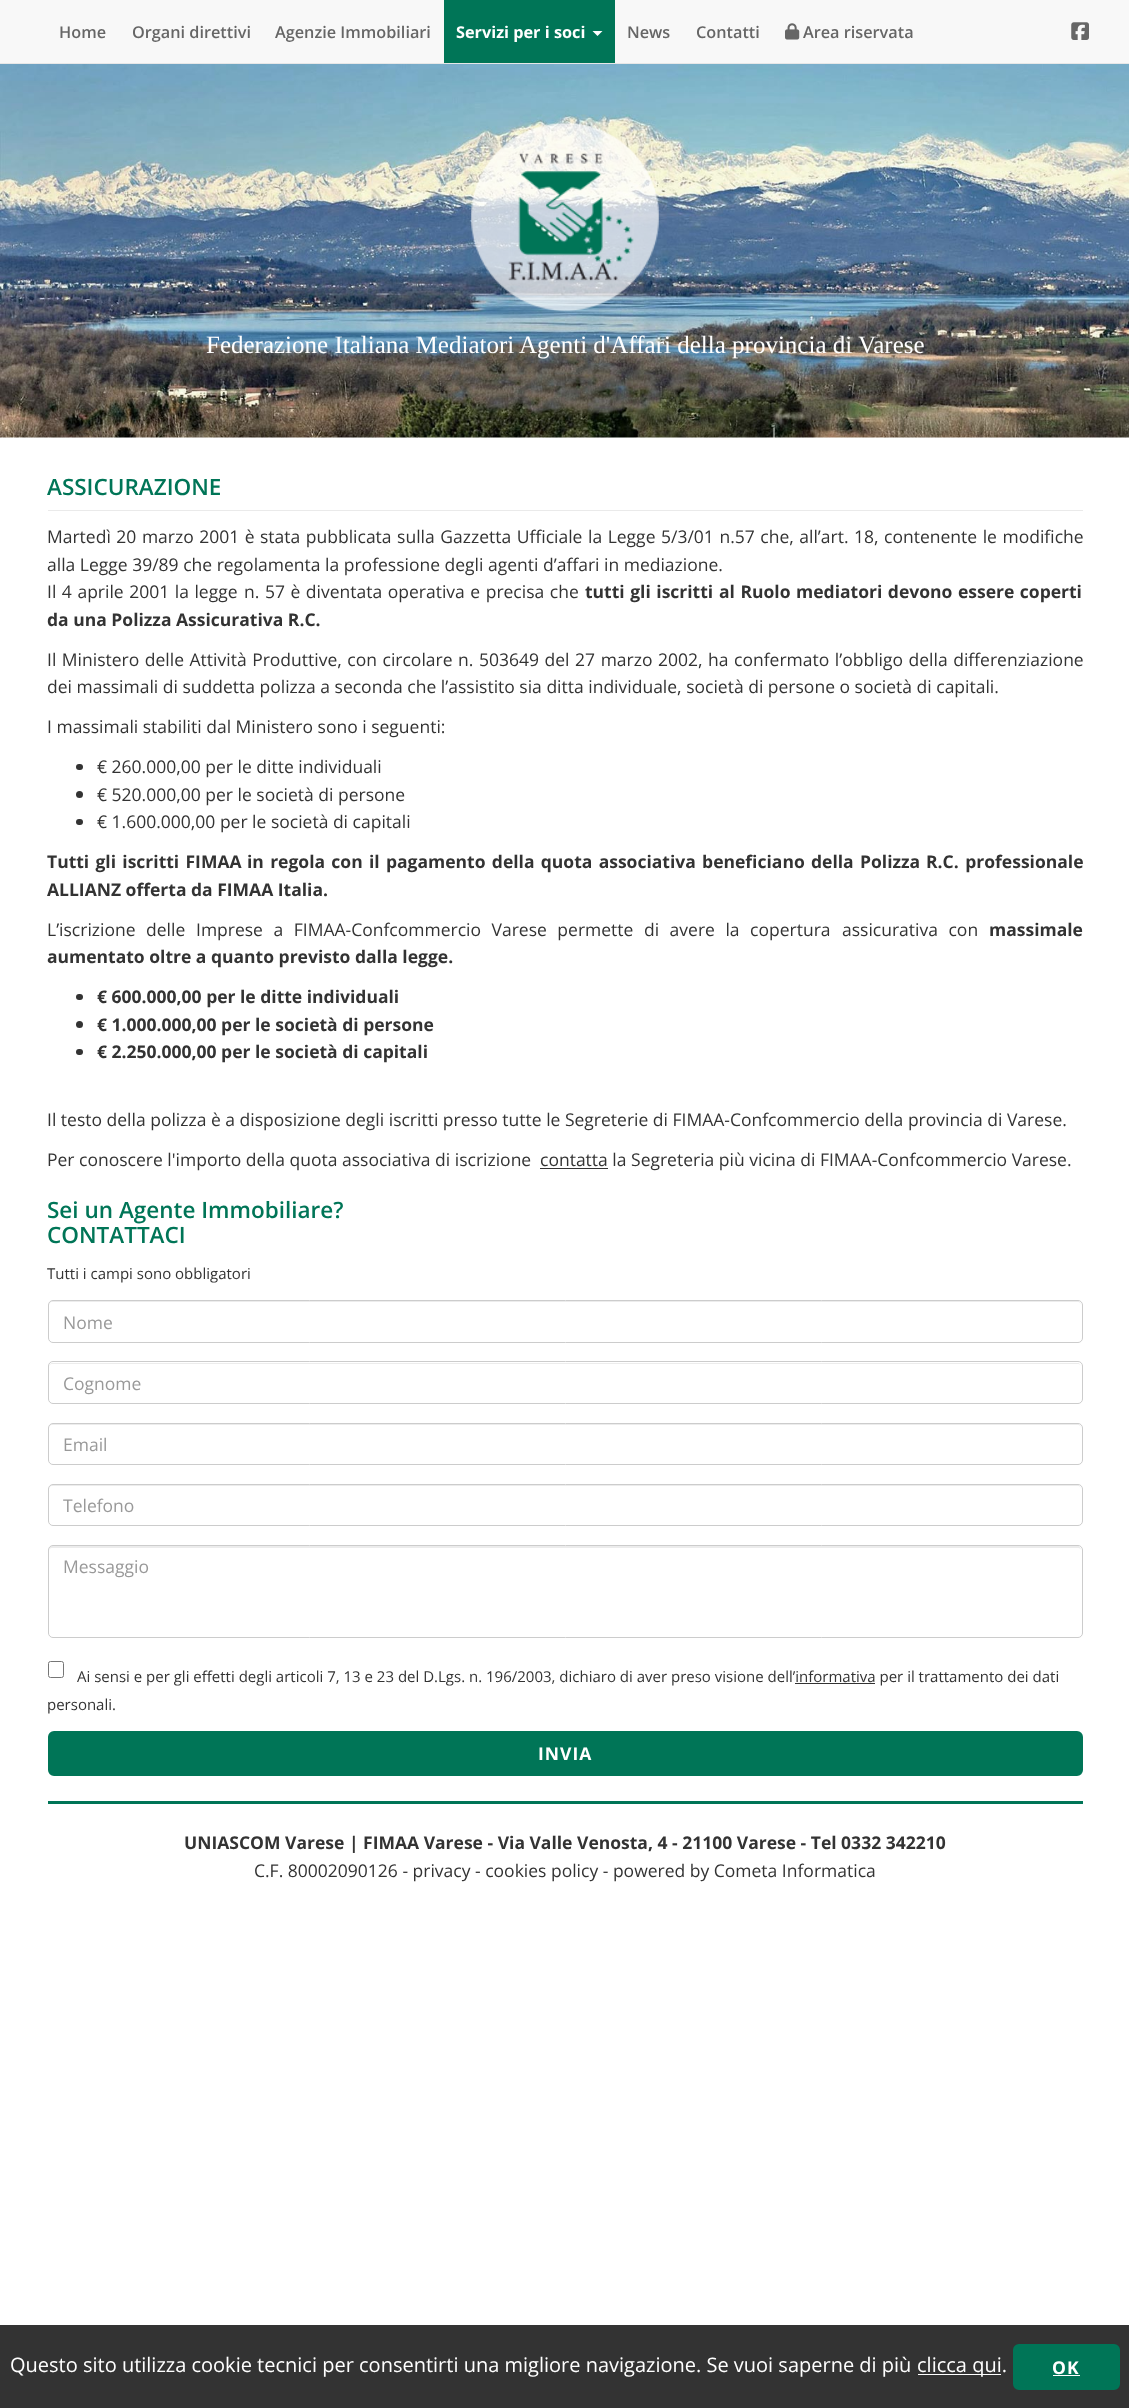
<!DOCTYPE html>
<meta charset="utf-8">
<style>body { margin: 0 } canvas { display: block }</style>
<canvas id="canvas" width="1129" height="2408"></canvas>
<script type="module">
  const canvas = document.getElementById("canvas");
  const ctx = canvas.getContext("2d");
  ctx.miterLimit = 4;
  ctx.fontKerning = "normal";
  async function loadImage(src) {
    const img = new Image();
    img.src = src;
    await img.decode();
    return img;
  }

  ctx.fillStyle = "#ffffff";
  ctx.fillRect(0, 0, 1129, 2408);
  ctx.fillStyle = "#f8f8f8";
  ctx.fillRect(0, 0, 1129, 63);
  ctx.fillStyle = "#e7e7e7";
  ctx.fillRect(0, 63, 1129, 1);
  ctx.font = "600 16.25px Open Sans";
  ctx.fillStyle = "#666666";
  ctx.fillText("Home", 59, 38);
  ctx.fillText("Organi direttivi", 132, 38);
  ctx.fillText("Agenzie Immobiliari", 275, 38);
  ctx.fillStyle = "#007557";
  ctx.fillRect(444, 0, 171, 63);
  ctx.font = "bold 16.25px Open Sans";
  ctx.fillStyle = "#ffffff";
  ctx.fillText("Servizi per i soci", 456, 38);
  ctx.beginPath();
  ctx.moveTo(592.5, 31);
  ctx.lineTo(602.5, 31);
  ctx.lineTo(597.5, 36);
  ctx.closePath();
  ctx.fill();
  ctx.font = "600 16.25px Open Sans";
  ctx.fillStyle = "#666666";
  ctx.fillText("News", 627, 38);
  ctx.fillText("Contatti", 696, 38);
  ctx.drawImage(await loadImage("img1.png"), 785, 23, 15, 17);
  ctx.fillText("Area riservata", 803, 38);
  ctx.drawImage(await loadImage("img2.png"), 1071, 22, 18, 18);
  ctx.drawImage(await loadImage("img3.png"), 0, 64, 1129, 374);
  ctx.drawImage(await loadImage("img4.png"), 471, 122, 188, 190);
  ctx.font = "25px Liberation Serif";
  ctx.fillStyle = "#ffffff";
  ctx.fillText("Federazione Italiana Mediatori Agenti d'Affari della provincia di Varese", 206, 353);
  ctx.fillStyle = "#eaeaea";
  ctx.fillRect(48, 510, 1035, 1);
  ctx.font = "600 22.5px Open Sans";
  ctx.fillStyle = "#007557";
  ctx.fillText("ASSICURAZIONE", 47, 495);
  ctx.wordSpacing = "1px";
  ctx.font = "17.5px Open Sans";
  ctx.fillStyle = "#333333";
  ctx.fillText("Martedì 20 marzo 2001 è", 47, 543);
  ctx.fillText("stata pubblicata sulla Gazzetta Ufficiale la Legge 5/3/01 n.57 che, all’art.", 260, 543);
  ctx.fillText("18, contenente le modifiche", 854, 543);
  ctx.wordSpacing = "0px";
  ctx.fillText("alla Legge 39/89 che regolamenta la professione degli agenti d’affari in mediazione.", 47, 571);
  ctx.wordSpacing = "1px";
  ctx.fillText("Il 4 aprile 2001 la legge", 47, 598);
  ctx.fillText("n. 57 è diventata operativa e precisa che", 244, 598);
  ctx.font = "bold 17.5px Open Sans";
  ctx.fillText("tutti gli iscritti", 585, 598);
  ctx.fillText("al Ruolo mediatori devono essere coperti", 719, 598);
  ctx.wordSpacing = "0px";
  ctx.fillText("da una Polizza Assicurativa R.C.", 47, 626);
  ctx.wordSpacing = "1px";
  ctx.font = "17.5px Open Sans";
  ctx.fillText("Il Ministero delle Attività Produttive, con circolare n.", 47, 666);
  ctx.fillText("503649 del 27 marzo 2002, ha confermato l’obbligo della differenziazione", 479, 666);
  ctx.wordSpacing = "0px";
  ctx.fillText("dei massimali di suddetta polizza a seconda che l’assistito sia ditta individuale, società di persone o società di capitali.", 47, 693);
  ctx.fillText("I massimali stabiliti dal Ministero sono i seguenti:", 47, 733);
  ctx.beginPath();
  ctx.roundRect(76, 764, 7, 6, 3);
  ctx.fill();
  ctx.fillText("€ 260.000,00 per le ditte individuali", 97, 773);
  ctx.beginPath();
  ctx.arc(79.5, 794.5, 3.5, 0, Math.PI * 2);
  ctx.fill();
  ctx.fillText("€ 520.000,00 per le società di persone", 97, 801);
  ctx.beginPath();
  ctx.roundRect(76, 819, 7, 6, 3);
  ctx.fill();
  ctx.fillText("€ 1.600.000,00 per le società di capitali", 97, 828);
  ctx.wordSpacing = "1.75px";
  ctx.font = "bold 17.5px Open Sans";
  ctx.fillText("Tutti gli iscritti FIMAA", 47, 868);
  ctx.fillText("in regola con il pagamento della quota associativa beneficiano della Polizza", 247, 868);
  ctx.wordSpacing = "2px";
  ctx.fillText("R.C. professionale", 926, 868);
  ctx.wordSpacing = "0px";
  ctx.fillText("ALLIANZ offerta da FIMAA Italia.", 47, 896);
  ctx.wordSpacing = "6px";
  ctx.font = "17.5px Open Sans";
  ctx.fillText("L’iscrizione delle", 47, 936);
  ctx.fillText("Imprese a FIMAA-Confcommercio Varese permette di avere la copertura", 196, 936);
  ctx.fillText("assicurativa con", 842, 936);
  ctx.wordSpacing = "0px";
  ctx.font = "bold 17.5px Open Sans";
  ctx.fillText("massimale", 989, 936);
  ctx.fillText("aumentato oltre a quanto previsto dalla legge.", 47, 963);
  ctx.beginPath();
  ctx.roundRect(76, 994, 7, 6, 3);
  ctx.fill();
  ctx.fillText("€ 600.000,00 per le ditte individuali", 97, 1003);
  ctx.beginPath();
  ctx.arc(79.5, 1024.5, 3.5, 0, Math.PI * 2);
  ctx.fill();
  ctx.fillText("€ 1.000.000,00 per le società di persone", 97, 1031);
  ctx.beginPath();
  ctx.roundRect(76, 1049, 7, 6, 3);
  ctx.fill();
  ctx.fillText("€ 2.250.000,00 per le società di capitali", 97, 1058);
  ctx.font = "17.5px Open Sans";
  ctx.fillText("Il testo della polizza è a disposizione degli iscritti presso tutte le Segreterie di FIMAA-Confcommercio della provincia di Varese.", 47, 1126);
  ctx.fillText("Per conoscere l'importo della quota associativa di iscrizione", 47, 1166);
  ctx.fillRect(540, 1168, 68, 1);
  ctx.fillText("contatta la Segreteria più vicina di FIMAA-Confcommercio Varese.", 540, 1166);
  ctx.font = "600 22.5px Open Sans";
  ctx.fillStyle = "#007557";
  ctx.fillText("Sei un Agente Immobiliare?", 47, 1218);
  ctx.fillText("CONTATTACI", 47, 1243);
  ctx.font = "15px Open Sans";
  ctx.fillStyle = "#333333";
  ctx.fillText("Tutti i campi sono obbligatori", 47, 1279);
  ctx.fillStyle = "#ececec";
  ctx.beginPath();
  ctx.moveTo(52, 1302);
  ctx.lineTo(1078, 1302);
  ctx.bezierCurveTo(1080, 1302, 1081, 1304, 1081, 1306);
  ctx.bezierCurveTo(1081, 1303, 1080, 1301, 1077, 1301);
  ctx.lineTo(53, 1301);
  ctx.bezierCurveTo(50, 1301, 49, 1303, 49, 1306);
  ctx.bezierCurveTo(49, 1304, 50, 1302, 52, 1302);
  ctx.closePath();
  ctx.fill();
  ctx.beginPath();
  ctx.roundRect(48.5, 1300.5, 1034, 42, 4.5);
  ctx.strokeStyle = "#cccccc";
  ctx.stroke();
  ctx.font = "17.5px Open Sans";
  ctx.fillStyle = "#999999";
  ctx.fillText("Nome", 63, 1329);
  ctx.fillStyle = "#ececec";
  ctx.beginPath();
  ctx.moveTo(52, 1364);
  ctx.lineTo(1078, 1364);
  ctx.bezierCurveTo(1080, 1364, 1081, 1365, 1081, 1368);
  ctx.bezierCurveTo(1081, 1365, 1080, 1363, 1077, 1363);
  ctx.lineTo(53, 1363);
  ctx.bezierCurveTo(50, 1363, 49, 1365, 49, 1368);
  ctx.bezierCurveTo(49, 1365, 50, 1364, 52, 1364);
  ctx.closePath();
  ctx.fill();
  ctx.beginPath();
  ctx.roundRect(48.5, 1361.5, 1034, 42, 4.5);
  ctx.stroke();
  ctx.fillStyle = "#999999";
  ctx.fillText("Cognome", 63, 1390);
  ctx.fillStyle = "#ececec";
  ctx.beginPath();
  ctx.moveTo(52, 1425);
  ctx.lineTo(1078, 1425);
  ctx.bezierCurveTo(1080, 1425, 1081, 1427, 1081, 1429);
  ctx.bezierCurveTo(1081, 1426, 1080, 1424, 1077, 1424);
  ctx.lineTo(53, 1424);
  ctx.bezierCurveTo(50, 1424, 49, 1426, 49, 1429);
  ctx.bezierCurveTo(49, 1427, 50, 1425, 52, 1425);
  ctx.closePath();
  ctx.fill();
  ctx.beginPath();
  ctx.roundRect(48.5, 1423.5, 1034, 41, 4.5);
  ctx.stroke();
  ctx.fillStyle = "#999999";
  ctx.fillText("Email", 63, 1451);
  ctx.fillStyle = "#ececec";
  ctx.beginPath();
  ctx.moveTo(52, 1486);
  ctx.lineTo(1078, 1486);
  ctx.bezierCurveTo(1080, 1486, 1081, 1488, 1081, 1490);
  ctx.bezierCurveTo(1081, 1487, 1080, 1485, 1077, 1485);
  ctx.lineTo(53, 1485);
  ctx.bezierCurveTo(50, 1485, 49, 1487, 49, 1490);
  ctx.bezierCurveTo(49, 1488, 50, 1486, 52, 1486);
  ctx.closePath();
  ctx.fill();
  ctx.beginPath();
  ctx.roundRect(48.5, 1484.5, 1034, 41, 4.5);
  ctx.stroke();
  ctx.fillStyle = "#999999";
  ctx.fillText("Telefono", 63, 1512);
  ctx.fillStyle = "#ececec";
  ctx.beginPath();
  ctx.moveTo(52, 1548);
  ctx.lineTo(1078, 1548);
  ctx.bezierCurveTo(1080, 1548, 1081, 1549, 1081, 1551);
  ctx.bezierCurveTo(1081, 1548, 1080, 1546, 1077, 1546);
  ctx.lineTo(53, 1546);
  ctx.bezierCurveTo(50, 1546, 49, 1548, 49, 1551);
  ctx.bezierCurveTo(49, 1549, 50, 1548, 52, 1548);
  ctx.closePath();
  ctx.fill();
  ctx.beginPath();
  ctx.roundRect(48.5, 1545.5, 1034, 92, 4.5);
  ctx.stroke();
  ctx.fillStyle = "#999999";
  ctx.fillText("Messaggio", 63, 1573);
  ctx.beginPath();
  ctx.roundRect(48.5, 1661.5, 15, 16, 2);
  ctx.strokeStyle = "#767676";
  ctx.stroke();
  ctx.font = "15px Open Sans";
  ctx.fillStyle = "#333333";
  ctx.fillText("Ai sensi e per gli effetti degli articoli 7, 13 e 23 del D.Lgs. n. 196/2003, dichiaro di aver preso visione dell’informativa per il trattamento dei dati", 77, 1682);
  ctx.fillRect(795, 1683, 80, 1);
  ctx.fillText("personali.", 47, 1710);
  ctx.fillStyle = "#007557";
  ctx.beginPath();
  ctx.roundRect(49.5, 1732.5, 1032, 42, 4.5);
  ctx.fill();
  ctx.strokeStyle = "#007557";
  ctx.lineWidth = 3;
  ctx.stroke();
  ctx.letterSpacing = "1px";
  ctx.font = "bold 17.5px Open Sans";
  ctx.fillStyle = "#ffffff";
  ctx.fillText("INVIA", 538, 1760);
  ctx.fillStyle = "#007557";
  ctx.fillRect(48, 1801, 1035, 3);
  ctx.letterSpacing = "0px";
  ctx.fillStyle = "#333333";
  ctx.fillText("UNIASCOM Varese | FIMAA Varese - Via Valle Venosta, 4 - 21100 Varese - Tel 0332 342210", 184, 1849);
  ctx.font = "17.5px Open Sans";
  ctx.fillText("C.F. 80002090126 - privacy - cookies policy - powered by Cometa Informatica", 254, 1877);
  ctx.fillRect(0, 2325, 1129, 83);
  ctx.font = "20px Open Sans";
  ctx.fillStyle = "#ffffff";
  ctx.fillText("Questo sito utilizza cookie tecnici per consentirti una migliore navigazione. Se vuoi saperne di più", 10, 2372);
  ctx.fillRect(918, 2374, 83, 1);
  ctx.fillText("clicca qui.", 917, 2372);
  ctx.fillStyle = "#007557";
  ctx.beginPath();
  ctx.roundRect(1014.5, 2345.5, 104, 43, 4.5);
  ctx.fill();
  ctx.stroke();
  ctx.letterSpacing = "1px";
  ctx.font = "bold 17.5px Open Sans";
  ctx.fillStyle = "#ffffff";
  ctx.fillText("OK", 1052, 2374);
  ctx.fillRect(1053, 2375, 27, 1);
</script>
